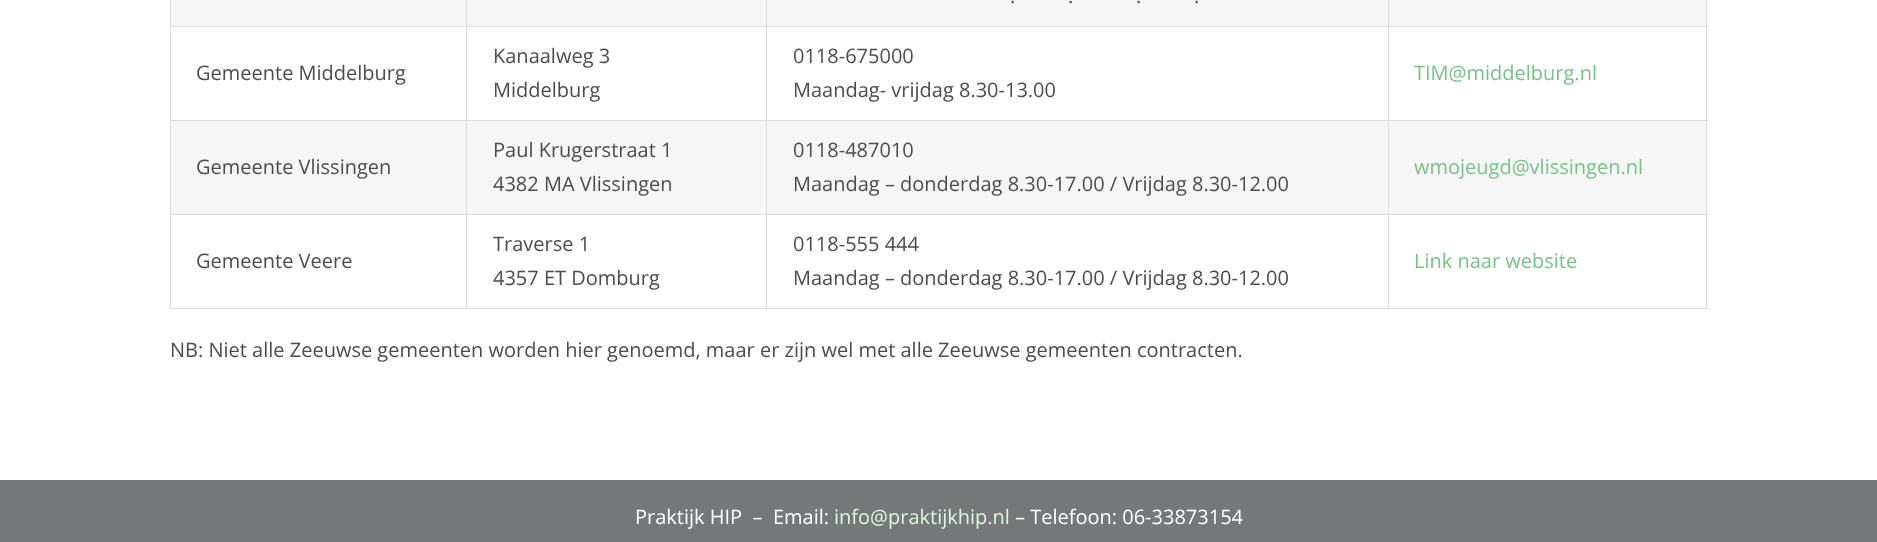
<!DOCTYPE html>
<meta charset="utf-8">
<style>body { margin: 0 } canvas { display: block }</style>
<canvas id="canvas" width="1877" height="542"></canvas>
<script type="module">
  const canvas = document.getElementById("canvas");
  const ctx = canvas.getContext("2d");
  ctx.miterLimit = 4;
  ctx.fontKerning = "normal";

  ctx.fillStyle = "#ffffff";
  ctx.fillRect(0, 0, 1877, 542);
  ctx.fillStyle = "#f6f6f6";
  ctx.fillRect(171, 0, 1537, 26);
  ctx.fillRect(171, 121, 1537, 93);
  ctx.fillStyle = "#dcdcdc";
  ctx.fillRect(1706, 0, 1, 309);
  ctx.fillRect(170, 308, 1538, 1);
  ctx.fillRect(170, 0, 1, 309);
  ctx.fillRect(1388, 26, 320, 1);
  ctx.fillRect(1388, 120, 320, 1);
  ctx.fillRect(1388, 214, 320, 1);
  ctx.fillRect(1388, 214, 1, 95);
  ctx.fillRect(766, 214, 623, 1);
  ctx.fillRect(1388, 120, 1, 95);
  ctx.fillRect(766, 120, 623, 1);
  ctx.fillRect(1388, 26, 1, 95);
  ctx.fillRect(766, 26, 623, 1);
  ctx.fillRect(766, 214, 1, 95);
  ctx.fillRect(466, 214, 302, 1);
  ctx.fillRect(766, 120, 1, 95);
  ctx.fillRect(466, 120, 302, 1);
  ctx.fillRect(766, 26, 1, 95);
  ctx.fillRect(466, 26, 302, 1);
  ctx.fillRect(466, 214, 1, 95);
  ctx.fillRect(170, 214, 298, 1);
  ctx.fillRect(466, 120, 1, 95);
  ctx.fillRect(170, 120, 298, 1);
  ctx.fillRect(466, 26, 1, 95);
  ctx.fillRect(170, 26, 298, 1);
  ctx.fillRect(466, 0, 1, 28);
  ctx.fillRect(766, 0, 1, 28);
  ctx.font = "20px Open Sans";
  ctx.fillStyle = "#4c4c4a";
  ctx.fillText(".", 1010, 3);
  ctx.fillText(".", 1068, 3);
  ctx.fillText(".", 1136, 3);
  ctx.fillText(".", 1194, 3);
  ctx.fillStyle = "#dcdcdc";
  ctx.fillRect(1388, 0, 1, 28);
  ctx.fillStyle = "#4c4c4a";
  ctx.fillText("Gemeente Middelburg", 196, 80);
  ctx.fillText("Kanaalweg 3", 493, 63);
  ctx.fillText("Middelburg", 493, 97);
  ctx.fillText("0118-675000", 793, 63);
  ctx.fillText("Maandag- vrijdag 8.30-13.00", 793, 97);
  ctx.fillStyle = "#76c289";
  ctx.fillText("TIM@middelburg.nl", 1414, 80);
  ctx.fillStyle = "#4c4c4a";
  ctx.fillText("Gemeente Vlissingen", 196, 174);
  ctx.fillText("Paul Krugerstraat 1", 493, 157);
  ctx.fillText("4382 MA Vlissingen", 493, 191);
  ctx.fillText("0118-487010", 793, 157);
  ctx.fillText("Maandag – donderdag 8.30-17.00 / Vrijdag 8.30-12.00", 793, 191);
  ctx.fillStyle = "#76c289";
  ctx.fillText("wmojeugd@vlissingen.nl", 1414, 174);
  ctx.fillStyle = "#4c4c4a";
  ctx.fillText("Gemeente Veere", 196, 268);
  ctx.fillText("Traverse 1", 493, 251);
  ctx.fillText("4357 ET Domburg", 493, 285);
  ctx.fillText("0118-555 444", 793, 251);
  ctx.fillText("Maandag – donderdag 8.30-17.00 / Vrijdag 8.30-12.00", 793, 285);
  ctx.fillStyle = "#76c289";
  ctx.fillText("Link naar website", 1414, 268);
  ctx.fillStyle = "#4c4c4a";
  ctx.fillText("NB: Niet alle Zeeuwse gemeenten worden hier genoemd, maar er zijn wel met alle Zeeuwse gemeenten contracten.", 170, 357);
  ctx.fillStyle = "#767779";
  ctx.fillRect(0, 480, 1877, 62);
  ctx.fillStyle = "#ffffff";
  ctx.fillText("Praktijk HIP  –  Email:", 635, 524);
  ctx.fillStyle = "#d8f8e0";
  ctx.fillText("info@praktijkhip.nl", 834, 524);
  ctx.fillStyle = "#ffffff";
  ctx.fillText("– Telefoon: 06-33873154", 1015, 524);
</script>
